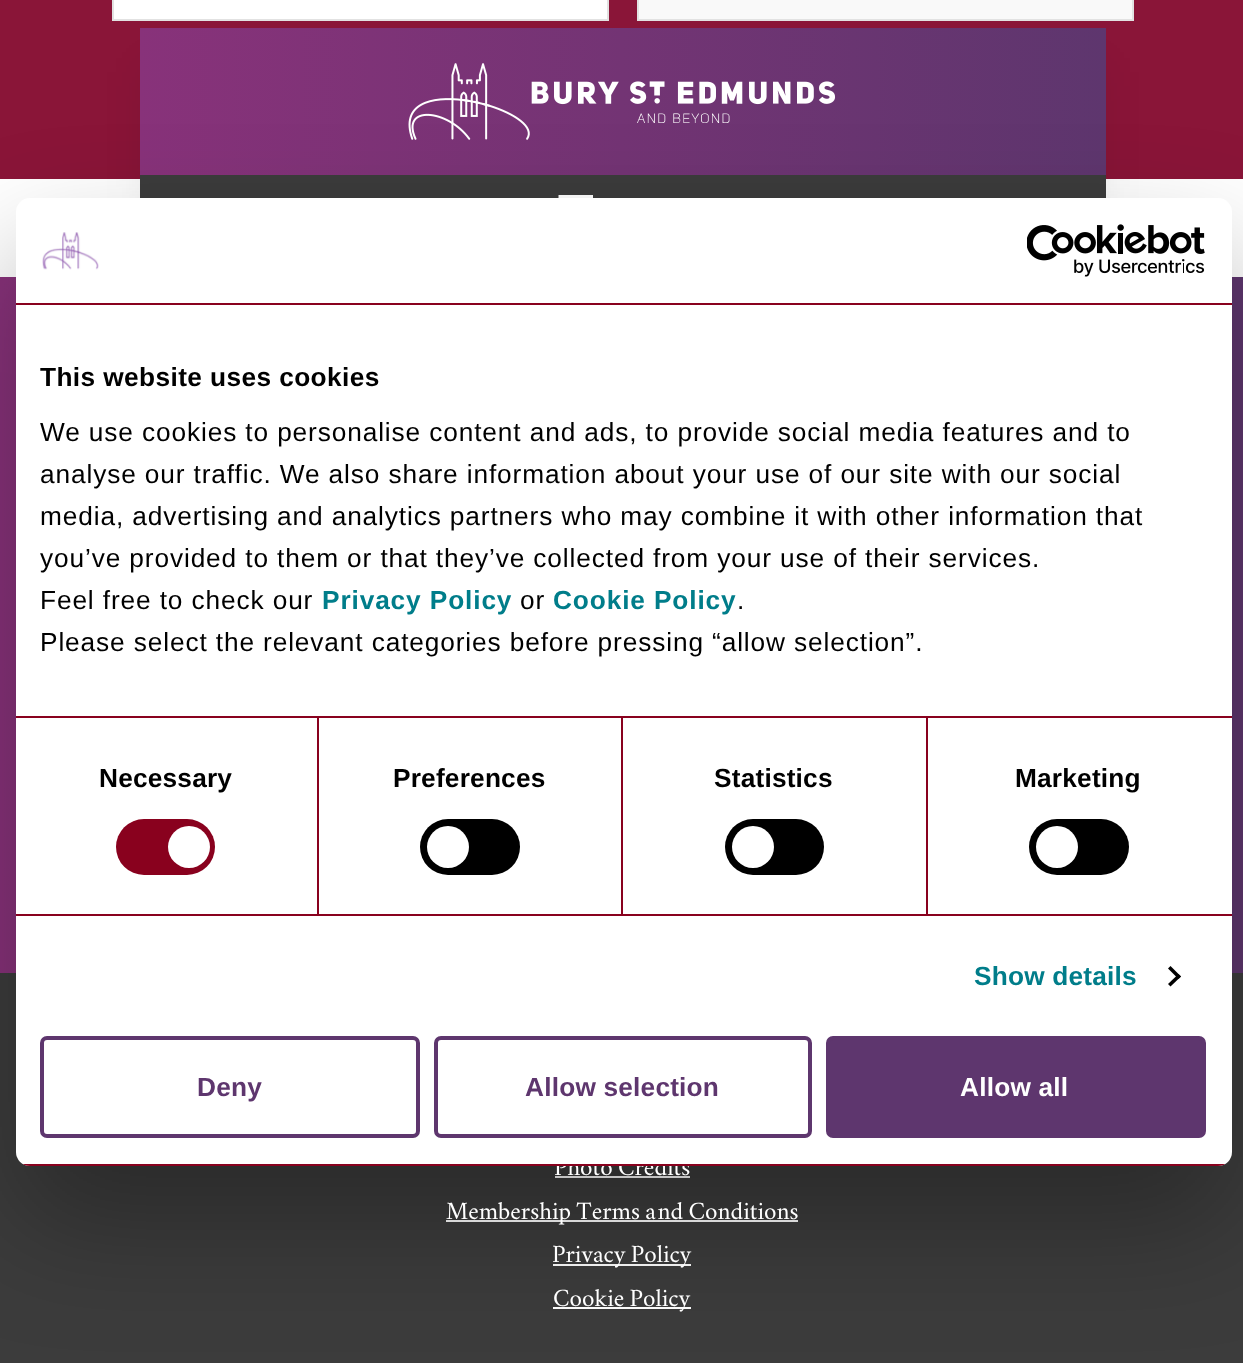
<!DOCTYPE html>
<meta charset="utf-8">
<style>body { margin: 0 } canvas { display: block }</style>
<canvas id="canvas" width="1243" height="1363"></canvas>
<script type="module">
  const canvas = document.getElementById("canvas");
  const ctx = canvas.getContext("2d");
  ctx.miterLimit = 4;
  ctx.fontKerning = "normal";
  async function loadImage(src) {
    const img = new Image();
    img.src = src;
    await img.decode();
    return img;
  }
  let gradient;

  ctx.fillStyle = "#ffffff";
  ctx.fillRect(0, 0, 1243, 1363);
  ctx.fillStyle = "#8a1538";
  ctx.fillRect(0, 0, 1243, 179);
  ctx.strokeStyle = "#e2e2e2";
  ctx.lineWidth = 2;
  ctx.strokeRect(113, -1, 495, 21);
  ctx.fillStyle = "#ffffff";
  ctx.fillRect(114, 0, 493, 19);
  ctx.strokeRect(638, -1, 495, 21);
  ctx.fillStyle = "#f9f9f9";
  ctx.fillRect(639, 0, 493, 19);
  ctx.fillStyle = "rgba(0, 0, 0, 0.1)";
  ctx.filter = "blur(22px)";
  ctx.beginPath();
  ctx.rect(149, 72, 948, 129);
  ctx.fill();
  ctx.filter = "none";
  gradient = ctx.createLinearGradient(140, 102, 1106, 101);
  gradient.addColorStop(0, "#88327a");
  gradient.addColorStop(1, "#5e366e");
  ctx.fillStyle = gradient;
  ctx.fillRect(140, 28, 966, 147);
  ctx.drawImage(await loadImage("img1.png"), 408, 63, 122, 77);
  ctx.drawImage(await loadImage("img2.png"), 531, 81, 305, 42);
  ctx.fillStyle = "#3c3c3c";
  ctx.fillRect(140, 175, 966, 23);
  ctx.save();
  ctx.beginPath();
  ctx.rect(558, 189, 35, 35);
  ctx.clip();
  ctx.fillStyle = "#ffffff";
  ctx.beginPath();
  ctx.moveTo(558.5, 218);
  ctx.lineTo(593.5, 218);
  ctx.lineTo(593.5, 214.5);
  ctx.lineTo(558.5, 214.5);
  ctx.closePath();
  ctx.moveTo(558.5, 208.5);
  ctx.lineTo(593.5, 208.5);
  ctx.lineTo(593.5, 204.5);
  ctx.lineTo(558.5, 204.5);
  ctx.closePath();
  ctx.moveTo(558.5, 195);
  ctx.lineTo(558.5, 198.5);
  ctx.lineTo(593.5, 198.5);
  ctx.lineTo(593.5, 195);
  ctx.closePath();
  ctx.fill("evenodd");
  ctx.restore();
  gradient = ctx.createLinearGradient(0, 625, 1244, 625);
  gradient.addColorStop(0, "#88327a");
  gradient.addColorStop(1, "#5e366e");
  ctx.fillStyle = gradient;
  ctx.fillRect(0, 277, 1243, 696);
  ctx.fillStyle = "#3c3c3c";
  ctx.fillRect(0, 973, 1243, 390);
  ctx.fillStyle = "#ffffff";
  ctx.fillRect(555, 1176, 135, 2);
  ctx.fillRect(446, 1220, 352, 2);
  ctx.fillRect(553, 1264, 138, 2);
  ctx.fillRect(553, 1307, 138, 2);
  ctx.fillStyle = "rgba(0, 0, 0, 0.3)";
  ctx.filter = "blur(59.5px)";
  ctx.beginPath();
  ctx.roundRect(16, 254, 1216, 968, 14);
  ctx.fill();
  ctx.filter = "none";
  ctx.fillStyle = "#ffffff";
  ctx.beginPath();
  ctx.roundRect(16, 198, 1216, 968, 14);
  ctx.fill();
  ctx.fillStyle = "#89011e";
  ctx.fillRect(16, 303, 1216, 2);
  ctx.drawImage(await loadImage("img3.png"), 42, 232, 57, 38);
  ctx.drawImage(await loadImage("img4.png"), 1027, 224, 178, 53);
  ctx.fillRect(16, 716, 1216, 2);
  ctx.letterSpacing = "0.4px";
  ctx.font = "bold 26.25px Liberation Sans";
  ctx.fillStyle = "#000000";
  ctx.fillText("This website uses cookies", 40, 386);
  ctx.letterSpacing = "0.88px";
  ctx.font = "26.25px Liberation Sans";
  ctx.fillText("We use cookies to personalise content and ads, to provide social media features and to", 40, 441);
  ctx.fillText("analyse our traffic. We also share information about your use of our site with our social", 40, 483);
  ctx.fillText("media, advertising and analytics partners who may combine it with other information that", 40, 525);
  ctx.fillText("you’ve provided to them or that they’ve collected from your use of their services.", 40, 567);
  ctx.fillText("Feel free to check our", 40, 609);
  ctx.font = "bold 26.25px Liberation Sans";
  ctx.fillStyle = "#007d8a";
  ctx.fillText("Privacy Policy", 322, 609);
  ctx.font = "26.25px Liberation Sans";
  ctx.fillStyle = "#000000";
  ctx.fillText("or", 520, 609);
  ctx.font = "bold 26.25px Liberation Sans";
  ctx.fillStyle = "#007d8a";
  ctx.fillText("Cookie Policy", 553, 609);
  ctx.font = "26.25px Liberation Sans";
  ctx.fillStyle = "#000000";
  ctx.fillText(".", 737, 609);
  ctx.fillText("Please select the relevant categories before pressing “allow selection”.", 40, 651);
  ctx.fillStyle = "#89011e";
  ctx.fillRect(16, 914, 1216, 2);
  ctx.fillRect(317, 718, 2, 196);
  ctx.letterSpacing = "0.2px";
  ctx.font = "bold 26.25px Liberation Sans";
  ctx.fillStyle = "#000000";
  ctx.fillText("Necessary", 99, 787);
  ctx.fillStyle = "#89011e";
  ctx.beginPath();
  ctx.roundRect(116, 819, 99, 56, 28);
  ctx.fill();
  ctx.fillStyle = "#ffffff";
  ctx.beginPath();
  ctx.arc(189, 847, 21, 0, Math.PI * 2);
  ctx.fill();
  ctx.fillStyle = "#89011e";
  ctx.fillRect(621, 718, 2, 196);
  ctx.fillStyle = "#000000";
  ctx.fillText("Preferences", 393, 787);
  ctx.beginPath();
  ctx.roundRect(420, 819, 100, 56, 28);
  ctx.fill();
  ctx.fillStyle = "#ffffff";
  ctx.beginPath();
  ctx.arc(448, 847, 21, 0, Math.PI * 2);
  ctx.fill();
  ctx.fillStyle = "#89011e";
  ctx.fillRect(926, 718, 2, 196);
  ctx.fillStyle = "#000000";
  ctx.fillText("Statistics", 714, 787);
  ctx.beginPath();
  ctx.roundRect(725, 819, 99, 56, 28);
  ctx.fill();
  ctx.fillStyle = "#ffffff";
  ctx.beginPath();
  ctx.arc(753, 847, 21, 0, Math.PI * 2);
  ctx.fill();
  ctx.fillStyle = "#000000";
  ctx.fillText("Marketing", 1015, 787);
  ctx.beginPath();
  ctx.roundRect(1029, 819, 100, 56, 28);
  ctx.fill();
  ctx.fillStyle = "#ffffff";
  ctx.beginPath();
  ctx.arc(1057, 847, 21, 0, Math.PI * 2);
  ctx.fill();
  ctx.fillStyle = "#007d8a";
  ctx.fillText("Show details", 974, 985);
  ctx.fillStyle = "#000000";
  ctx.beginPath();
  ctx.moveTo(1170.5, 966);
  ctx.lineTo(1181, 976.5);
  ctx.lineTo(1178.5, 979);
  ctx.lineTo(1168, 968.5);
  ctx.closePath();
  ctx.fill();
  ctx.beginPath();
  ctx.moveTo(1178.5, 974);
  ctx.lineTo(1181, 976.5);
  ctx.lineTo(1170.5, 986.5);
  ctx.lineTo(1168, 984);
  ctx.closePath();
  ctx.fill();
  ctx.letterSpacing = "0px";
  ctx.font = "24.5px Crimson";
  ctx.fillStyle = "#ffffff";
  ctx.fillText("Photo Credits", 554, 1175);
  ctx.save();
  ctx.beginPath();
  ctx.roundRect(16, 198, 1216, 968, 14);
  ctx.clip();
  ctx.fillStyle = "#89011e";
  ctx.fillRect(16, 1164, 1216, 2);
  ctx.restore();
  ctx.beginPath();
  ctx.roundRect(42, 1038, 376, 98, 5);
  ctx.strokeStyle = "#5e366e";
  ctx.lineWidth = 4;
  ctx.stroke();
  ctx.letterSpacing = "0.2px";
  ctx.font = "bold 26.25px Liberation Sans";
  ctx.fillStyle = "#5e366e";
  ctx.fillText("Deny", 197, 1096);
  ctx.beginPath();
  ctx.roundRect(436, 1038, 374, 98, 5);
  ctx.stroke();
  ctx.fillText("Allow selection", 525, 1096);
  ctx.beginPath();
  ctx.roundRect(828, 1038, 376, 98, 5);
  ctx.fill();
  ctx.stroke();
  ctx.fillStyle = "#ffffff";
  ctx.fillText("Allow all", 960, 1096);
  ctx.letterSpacing = "0px";
  ctx.font = "24.5px Crimson";
  ctx.fillText("Membership Terms and Conditions", 446, 1219);
  ctx.fillText("Privacy Policy", 552, 1262);
  ctx.fillText("Cookie Policy", 553, 1306);
</script>
